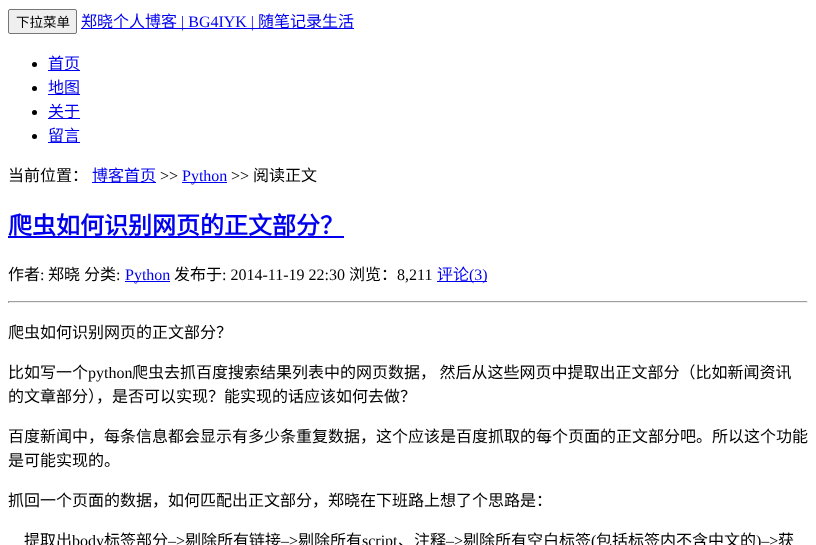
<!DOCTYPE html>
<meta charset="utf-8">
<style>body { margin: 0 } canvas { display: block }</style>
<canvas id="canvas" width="816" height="545"></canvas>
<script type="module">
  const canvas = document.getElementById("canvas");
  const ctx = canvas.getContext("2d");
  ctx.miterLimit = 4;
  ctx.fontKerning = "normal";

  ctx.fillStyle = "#ffffff";
  ctx.fillRect(0, 0, 816, 545);
  ctx.fillStyle = "#efefef";
  ctx.beginPath();
  ctx.roundRect(8.5, 9.5, 68, 24, 1.5);
  ctx.fill();
  ctx.strokeStyle = "#767676";
  ctx.stroke();
  ctx.font = "13.5px Noto Sans CJK SC";
  ctx.fillStyle = "#000000";
  ctx.fillText("下拉菜单", 16, 27);
  ctx.fillStyle = "#0000ee";
  ctx.fillRect(81, 28, 273, 1);
  ctx.font = "16px Noto Sans CJK SC";
  ctx.fillText("郑晓个人博客", 81, 27);
  ctx.font = "16px Liberation Serif";
  ctx.fillText("| BG4IYK |", 181, 27);
  ctx.font = "16px Noto Sans CJK SC";
  ctx.fillText("随笔记录生活", 258, 27);
  ctx.fillStyle = "#000000";
  ctx.beginPath();
  ctx.arc(34.5, 64.5, 2.5, 0, Math.PI * 2);
  ctx.fill();
  ctx.fillStyle = "#0000ee";
  ctx.fillRect(48, 70, 32, 1);
  ctx.fillText("首页", 48, 69);
  ctx.fillStyle = "#000000";
  ctx.beginPath();
  ctx.arc(34.5, 88.5, 2.5, 0, Math.PI * 2);
  ctx.fill();
  ctx.fillStyle = "#0000ee";
  ctx.fillRect(48, 94, 32, 1);
  ctx.fillText("地图", 48, 93);
  ctx.fillStyle = "#000000";
  ctx.beginPath();
  ctx.arc(34.5, 112.5, 2.5, 0, Math.PI * 2);
  ctx.fill();
  ctx.fillStyle = "#0000ee";
  ctx.fillRect(48, 118, 32, 1);
  ctx.fillText("关于", 48, 117);
  ctx.fillStyle = "#000000";
  ctx.beginPath();
  ctx.arc(34.5, 136.5, 2.5, 0, Math.PI * 2);
  ctx.fill();
  ctx.fillStyle = "#0000ee";
  ctx.fillRect(48, 142, 32, 1);
  ctx.fillText("留言", 48, 141);
  ctx.fillStyle = "#000000";
  ctx.fillText("当前位置：", 8, 181);
  ctx.fillStyle = "#0000ee";
  ctx.fillRect(92, 182, 64, 1);
  ctx.fillText("博客首页", 92, 181);
  ctx.font = "16px Liberation Serif";
  ctx.fillStyle = "#000000";
  ctx.fillText(">>", 160, 181);
  ctx.fillStyle = "#0000ee";
  ctx.fillRect(182, 182, 45, 1);
  ctx.fillText("Python", 182, 181);
  ctx.fillStyle = "#000000";
  ctx.fillText(">>", 231, 181);
  ctx.font = "16px Noto Sans CJK SC";
  ctx.fillText("阅读正文", 253, 181);
  ctx.fillStyle = "#0000ee";
  ctx.fillRect(8, 236, 336, 2);
  ctx.font = "bold 24px Noto Sans CJK SC";
  ctx.fillText("爬虫如何识别网页的正文部分？", 8, 234);
  ctx.font = "16px Noto Sans CJK SC";
  ctx.fillStyle = "#000000";
  ctx.fillText("作者", 8, 280);
  ctx.font = "16px Liberation Serif";
  ctx.fillText(":", 40, 280);
  ctx.font = "16px Noto Sans CJK SC";
  ctx.fillText("郑晓", 48, 280);
  ctx.fillText("分类", 84, 280);
  ctx.font = "16px Liberation Serif";
  ctx.fillText(":", 116, 280);
  ctx.fillStyle = "#0000ee";
  ctx.fillRect(125, 281, 45, 1);
  ctx.fillText("Python", 125, 280);
  ctx.font = "16px Noto Sans CJK SC";
  ctx.fillStyle = "#000000";
  ctx.fillText("发布于", 174, 280);
  ctx.font = "16px Liberation Serif";
  ctx.fillText(": 2014-11-19 22:30", 222, 280);
  ctx.font = "16px Noto Sans CJK SC";
  ctx.fillText("浏览：", 349, 280);
  ctx.font = "16px Liberation Serif";
  ctx.fillText("8,211", 397, 280);
  ctx.fillStyle = "#0000ee";
  ctx.fillRect(437, 281, 50, 1);
  ctx.font = "16px Noto Sans CJK SC";
  ctx.fillText("评论", 437, 280);
  ctx.font = "16px Liberation Serif";
  ctx.fillText("(3)", 469, 280);
  ctx.fillStyle = "#9f9f9f";
  ctx.fillRect(8, 301, 800, 1);
  ctx.fillStyle = "#eeeeee";
  ctx.fillRect(807, 301, 1, 2);
  ctx.fillRect(8, 302, 800, 1);
  ctx.fillStyle = "#9f9f9f";
  ctx.fillRect(8, 301, 1, 2);
  ctx.font = "16px Noto Sans CJK SC";
  ctx.fillStyle = "#000000";
  ctx.fillText("爬虫如何识别网页的正文部分？", 8, 338);
  ctx.fillText("比如写一个", 8, 378);
  ctx.font = "16px Liberation Serif";
  ctx.fillText("python", 88, 378);
  ctx.font = "16px Noto Sans CJK SC";
  ctx.fillText("爬虫去抓百度搜索结果列表中的网页数据， 然后从这些网页中提取出正文部分（比如新闻资讯", 132, 378);
  ctx.fillText("的文章部分），是否可以实现？能实现的话应该如何去做？", 8, 402);
  ctx.fillText("百度新闻中，每条信息都会显示有多少条重复数据，这个应该是百度抓取的每个页面的正文部分吧。所以这个功能", 8, 442);
  ctx.fillText("是可能实现的。", 8, 466);
  ctx.fillText("抓回一个页面的数据，如何匹配出正文部分，郑晓在下班路上想了个思路是：", 8, 506);
  ctx.fillText("提取出", 24, 546);
  ctx.font = "16px Liberation Serif";
  ctx.fillText("body", 72, 546);
  ctx.font = "16px Noto Sans CJK SC";
  ctx.fillText("标签部分", 104, 546);
  ctx.font = "16px Liberation Serif";
  ctx.fillText("–>", 168, 546);
  ctx.font = "16px Noto Sans CJK SC";
  ctx.fillText("剔除所有链接", 185, 546);
  ctx.font = "16px Liberation Serif";
  ctx.fillText("–>", 281, 546);
  ctx.font = "16px Noto Sans CJK SC";
  ctx.fillText("剔除所有", 298, 546);
  ctx.font = "16px Liberation Serif";
  ctx.fillText("script", 362, 546);
  ctx.font = "16px Noto Sans CJK SC";
  ctx.fillText("、注释", 398, 546);
  ctx.font = "16px Liberation Serif";
  ctx.fillText("–>", 446, 546);
  ctx.font = "16px Noto Sans CJK SC";
  ctx.fillText("剔除所有空白标签", 463, 546);
  ctx.font = "16px Liberation Serif";
  ctx.fillText("(", 591, 546);
  ctx.font = "16px Noto Sans CJK SC";
  ctx.fillText("包括标签内不含中文的", 596, 546);
  ctx.font = "16px Liberation Serif";
  ctx.fillText(")–>", 756, 546);
  ctx.font = "16px Noto Sans CJK SC";
  ctx.fillText("获", 778, 546);
</script>
